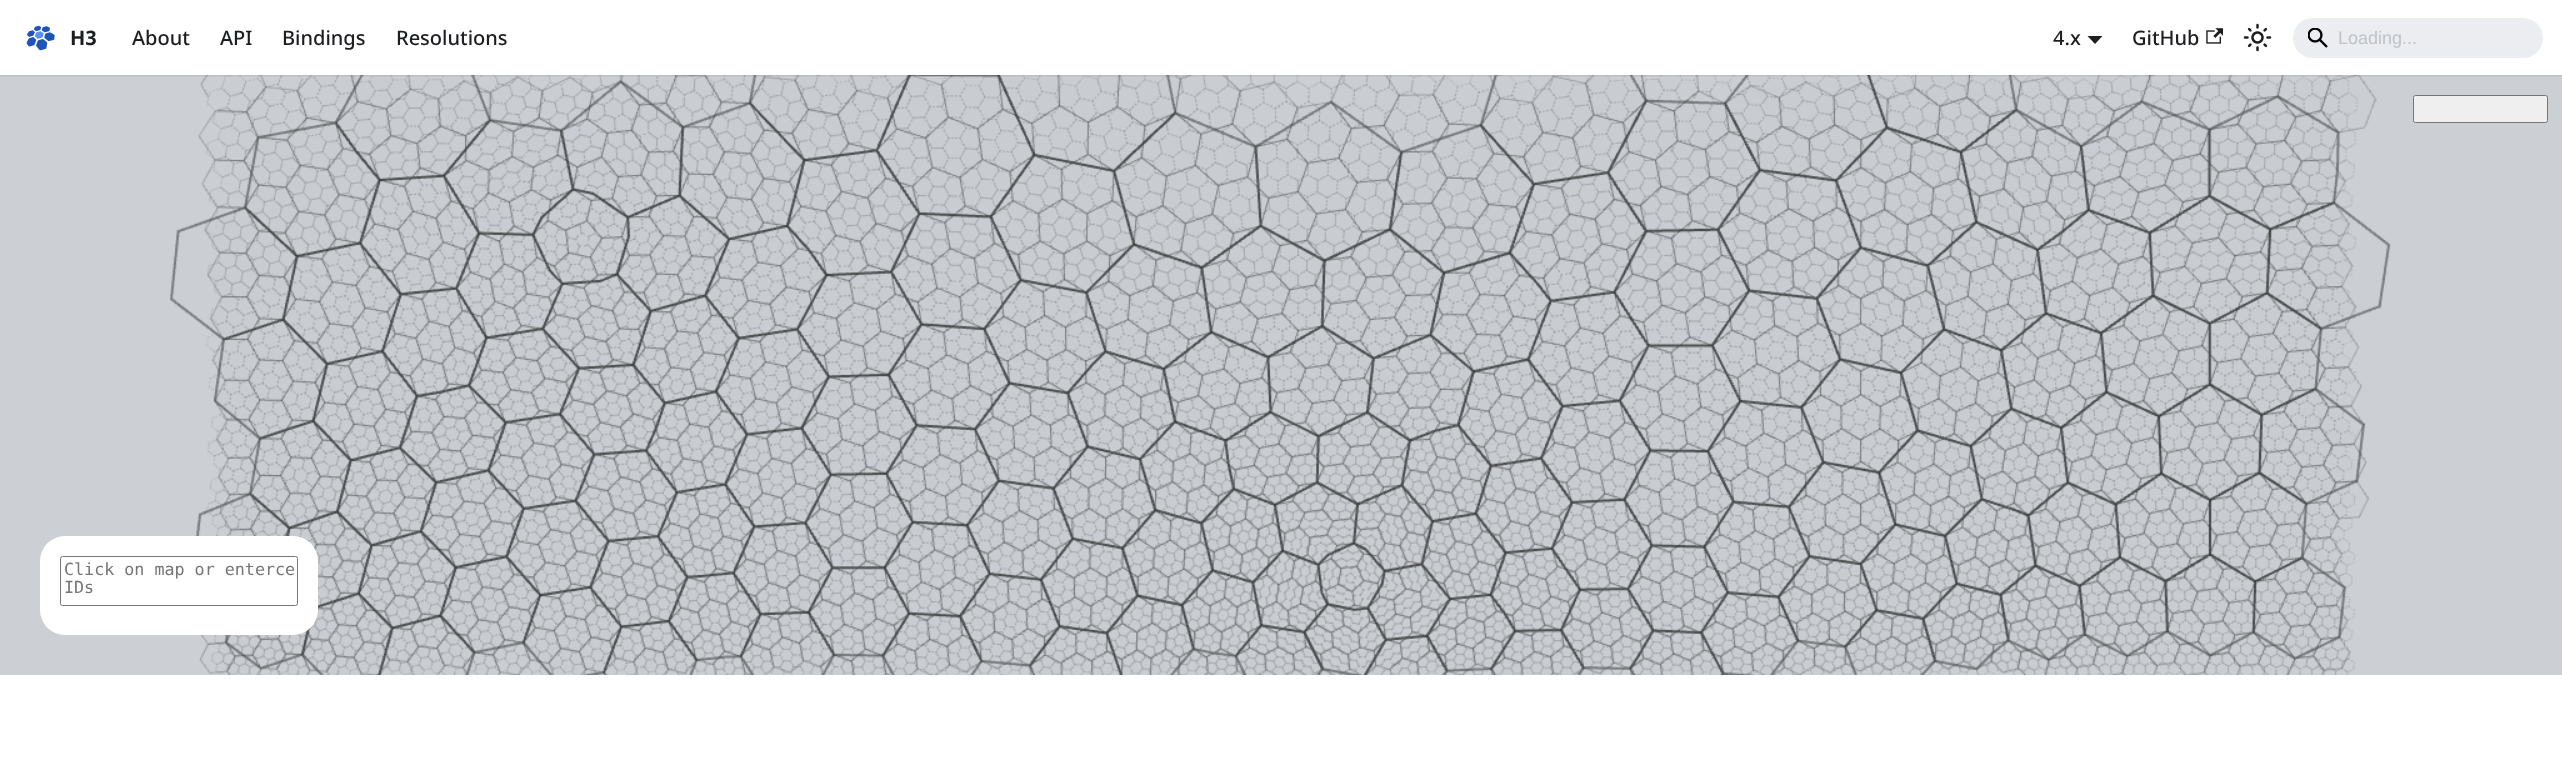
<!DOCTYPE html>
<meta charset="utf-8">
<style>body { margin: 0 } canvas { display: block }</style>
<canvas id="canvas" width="2562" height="760"></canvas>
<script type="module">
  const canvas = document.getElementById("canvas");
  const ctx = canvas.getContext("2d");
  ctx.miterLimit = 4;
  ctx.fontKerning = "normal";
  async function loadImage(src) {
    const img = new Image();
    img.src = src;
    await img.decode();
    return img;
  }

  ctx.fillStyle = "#ffffff";
  ctx.fillRect(0, 0, 2562, 760);
  ctx.fillStyle = "#ccd0d5";
  ctx.fillRect(0, 75, 2562, 600);
  ctx.drawImage(await loadImage("img5.png"), 170, 75, 2221, 600);
  ctx.save();
  ctx.beginPath();
  ctx.rect(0, 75, 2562, 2);
  ctx.clip();
  ctx.fillStyle = "rgba(0, 0, 0, 0.1)";
  ctx.filter = "blur(1px)";
  ctx.beginPath();
  ctx.rect(0, 1, 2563, 75);
  ctx.fill();
  ctx.filter = "none";
  ctx.restore();
  ctx.drawImage(await loadImage("img1.png"), 26, 25, 29, 26);
  ctx.font = "bold 20px Noto Sans";
  ctx.fillStyle = "#1c1e21";
  ctx.fillText("H3", 70, 45);
  ctx.font = "500 20px Noto Sans";
  ctx.fillText("About", 132, 45);
  ctx.fillText("API", 220, 45);
  ctx.fillText("Bindings", 282, 45);
  ctx.fillText("Resolutions", 396, 45);
  ctx.fillText("4.x", 2053, 45);
  ctx.beginPath();
  ctx.moveTo(2087.5, 36);
  ctx.lineTo(2102.5, 36);
  ctx.lineTo(2095, 44);
  ctx.closePath();
  ctx.fill();
  ctx.fillText("GitHub", 2132, 45);
  ctx.drawImage(await loadImage("img2.png"), 2206, 28, 17, 16);
  ctx.drawImage(await loadImage("img3.png"), 2243, 23, 29, 29);
  ctx.fillStyle = "#ebedf0";
  ctx.beginPath();
  ctx.roundRect(2293, 18, 250, 40, 20);
  ctx.fill();
  ctx.drawImage(await loadImage("img4.png"), 2308, 28, 20, 20);
  ctx.font = "18px Liberation Sans";
  ctx.fillStyle = "#bec3c9";
  ctx.fillText("Loading...", 2338, 44);
  ctx.fillStyle = "#efefef";
  ctx.beginPath();
  ctx.roundRect(2413.5, 95.5, 134, 27, 2);
  ctx.fill();
  ctx.strokeStyle = "#767676";
  ctx.stroke();
  ctx.fillStyle = "#ffffff";
  ctx.beginPath();
  ctx.roundRect(40, 536, 278, 99, 25);
  ctx.fill();
  ctx.beginPath();
  ctx.roundRect(60.5, 556.5, 237, 49, 2);
  ctx.stroke();
  ctx.font = "16.7px DejaVu Sans Mono";
  ctx.fillStyle = "#757575";
  ctx.fillText("Click on map or enterce", 64, 575);
  ctx.fillText("IDs", 64, 593);
</script>
